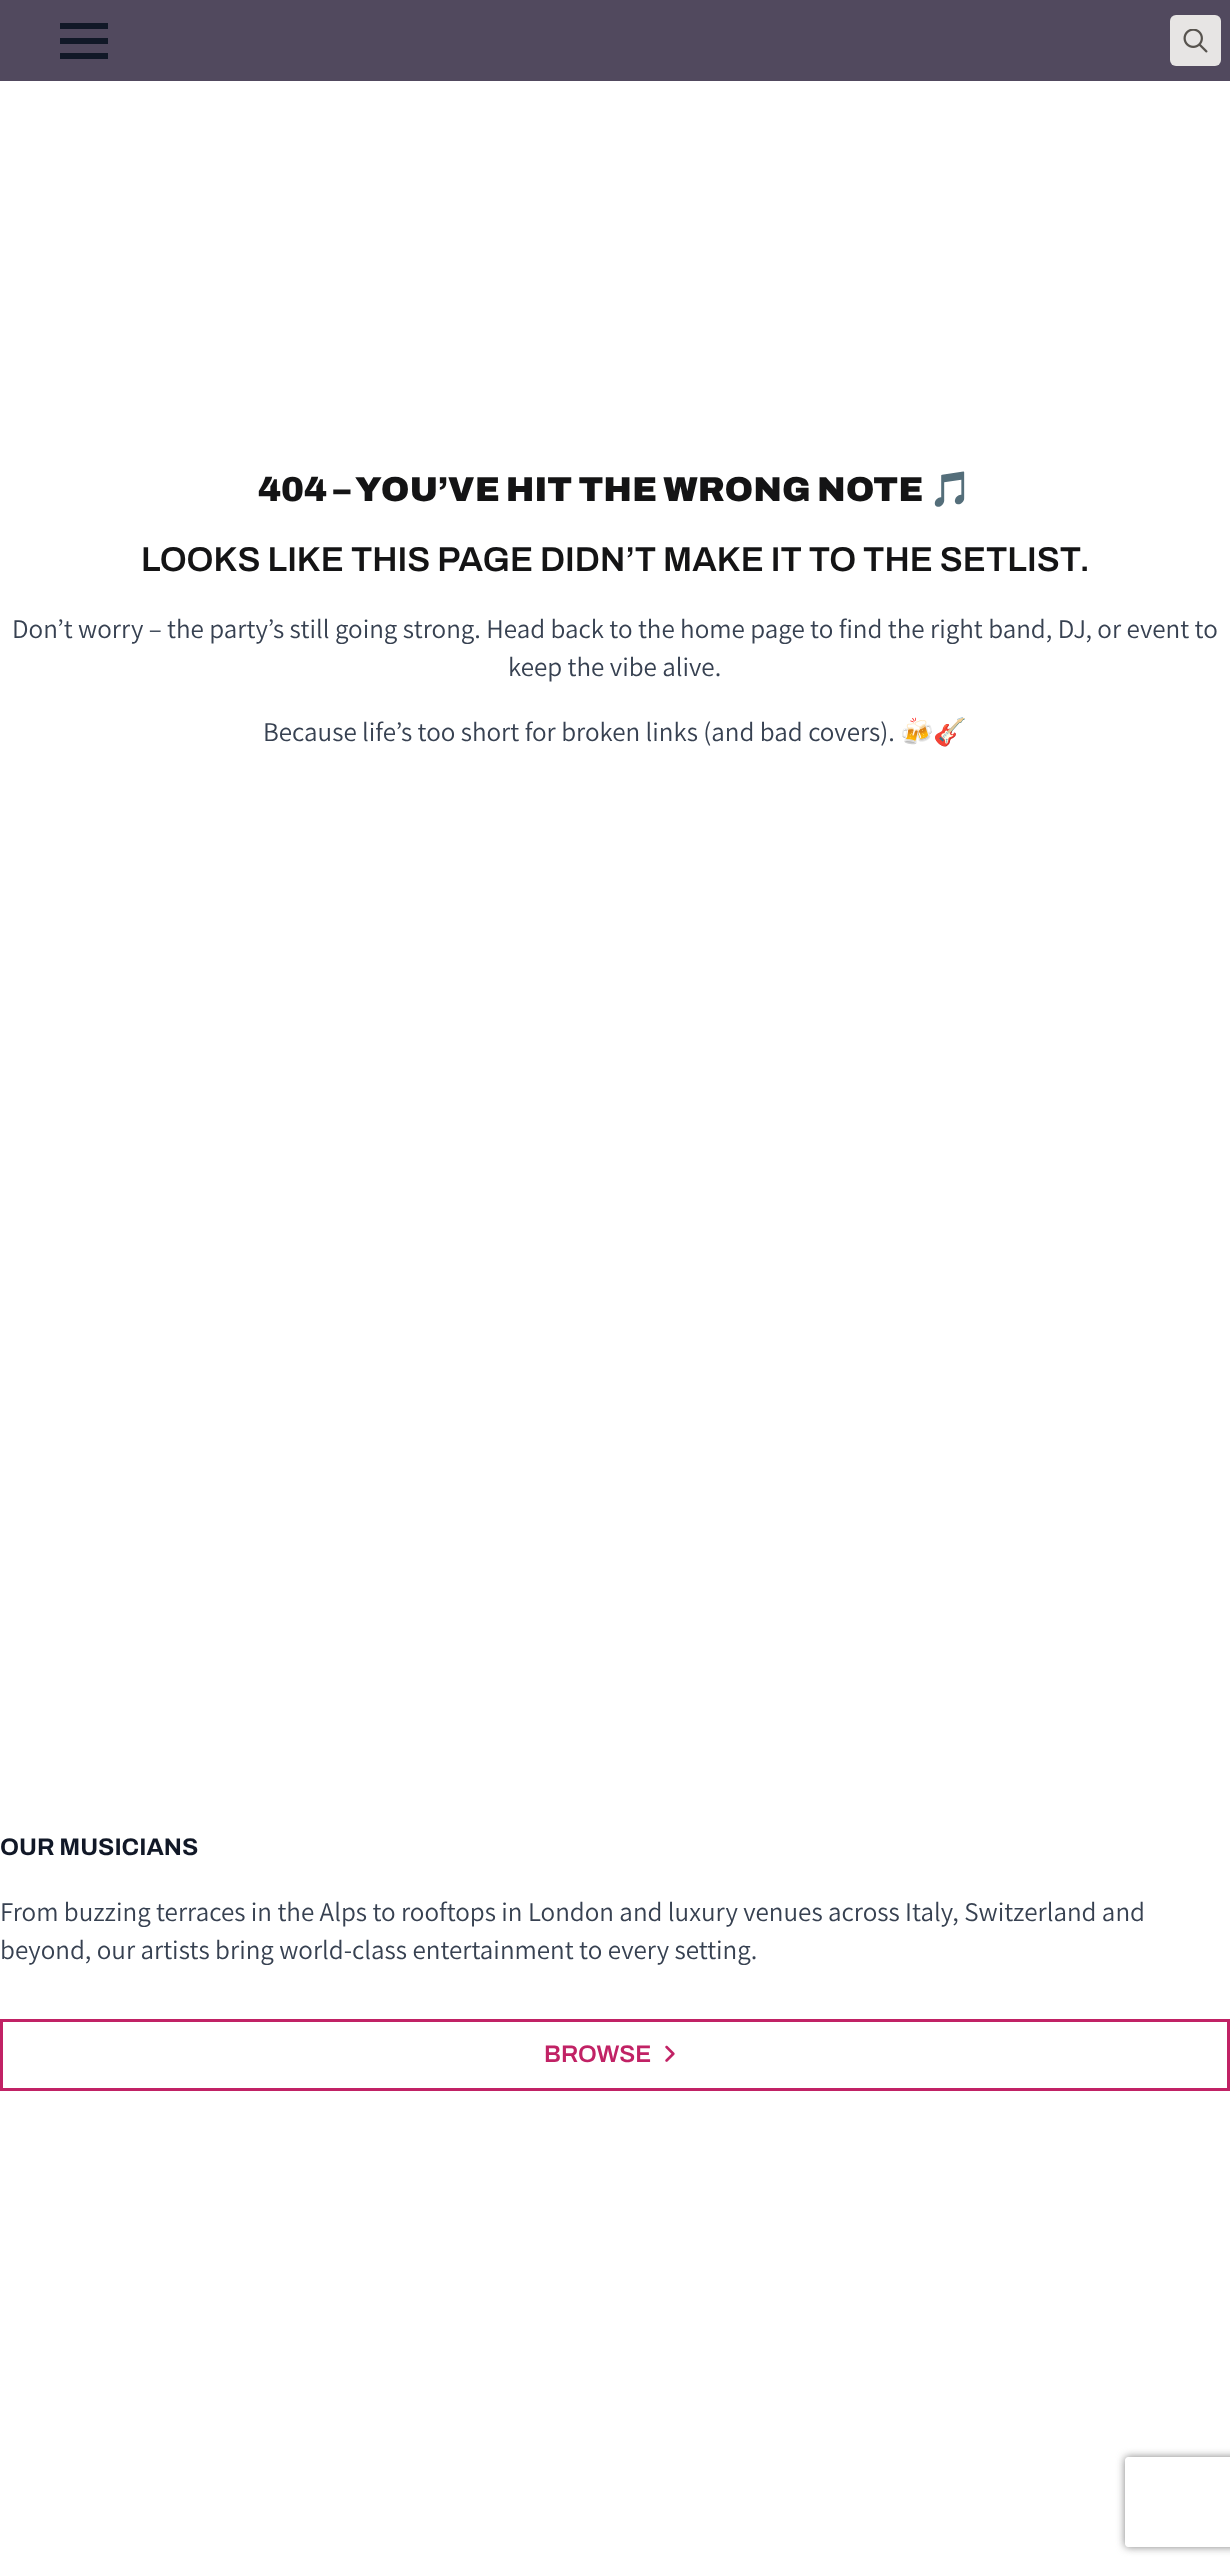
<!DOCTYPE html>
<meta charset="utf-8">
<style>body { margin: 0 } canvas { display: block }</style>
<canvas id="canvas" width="1230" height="2568"></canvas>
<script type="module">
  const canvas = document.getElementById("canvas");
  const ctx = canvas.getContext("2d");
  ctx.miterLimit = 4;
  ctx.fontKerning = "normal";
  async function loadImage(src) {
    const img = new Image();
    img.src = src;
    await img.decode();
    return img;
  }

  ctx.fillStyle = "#ffffff";
  ctx.fillRect(0, 0, 1230, 2568);
  ctx.fillStyle = "#51495e";
  ctx.fillRect(0, 0, 1230, 81);
  ctx.fillStyle = "#111827";
  ctx.fillRect(60, 38, 48, 6);
  ctx.fillRect(60, 23, 48, 6);
  ctx.fillRect(60, 53, 48, 6);
  ctx.fillStyle = "#e7e5e4";
  ctx.beginPath();
  ctx.roundRect(1170, 15, 51, 51, 6);
  ctx.fill();
  ctx.drawImage(await loadImage("img1.png"), 1183, 29, 25, 24);
  ctx.font = "900 34.5px Archivo";
  ctx.fillStyle = "#141415";
  ctx.fillText("404 – YOU’VE HIT THE WRONG NOTE", 258, 501);
  ctx.font = "bold 34.5px Noto Color Emoji";
  ctx.fillText("🎵", 929, 501);
  ctx.font = "600 34.5px Archivo";
  ctx.fillText("LOOKS LIKE THIS PAGE DIDN’T MAKE IT TO THE SETLIST.", 141, 571);
  ctx.font = "27px Assistant";
  ctx.fillStyle = "#374151";
  ctx.fillText("Don’t worry – the party’s still going strong. Head back to the home page to find the right band, DJ, or event to", 12, 638);
  ctx.fillText("keep the vibe alive.", 508, 676);
  ctx.fillText("Because life’s too short for broken links (and bad covers).", 263, 741);
  ctx.font = "27px Noto Color Emoji";
  ctx.fillText("🍻🎸", 900, 741);
  ctx.font = "bold 24px Archivo";
  ctx.fillStyle = "#111827";
  ctx.fillText("OUR MUSICIANS", 0, 1855);
  ctx.font = "27px Assistant";
  ctx.fillStyle = "#374151";
  ctx.fillText("From buzzing terraces in the Alps to rooftops in London and luxury venues across Italy, Switzerland and", 0, 1921);
  ctx.fillText("beyond, our artists bring world-class entertainment to every setting.", 0, 1959);
  ctx.strokeStyle = "#c12265";
  ctx.lineWidth = 3;
  ctx.strokeRect(1.5, 2020.5, 1227, 69);
  ctx.font = "600 24px Archivo";
  ctx.fillStyle = "#c12265";
  ctx.fillText("BROWSE", 544, 2062);
  ctx.drawImage(await loadImage("img2.png"), 665, 2045, 10, 17);
  ctx.save();
  ctx.beginPath();
  ctx.moveTo(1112, 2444);
  ctx.lineTo(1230, 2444);
  ctx.lineTo(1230, 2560);
  ctx.lineTo(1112, 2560);
  ctx.closePath();
  ctx.moveTo(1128, 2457);
  ctx.lineTo(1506, 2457);
  ctx.bezierCurveTo(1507.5, 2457, 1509, 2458.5, 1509, 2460);
  ctx.lineTo(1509, 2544);
  ctx.bezierCurveTo(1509, 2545.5, 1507.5, 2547, 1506, 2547);
  ctx.lineTo(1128, 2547);
  ctx.bezierCurveTo(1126.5, 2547, 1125, 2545.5, 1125, 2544);
  ctx.lineTo(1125, 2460);
  ctx.bezierCurveTo(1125, 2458.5, 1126.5, 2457, 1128, 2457);
  ctx.closePath();
  ctx.clip("evenodd");
  ctx.fillStyle = "#808080";
  ctx.filter = "blur(4px)";
  ctx.beginPath();
  ctx.roundRect(1125, 2457, 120, 90, 3);
  ctx.fill();
  ctx.filter = "none";
  ctx.restore();
</script>
